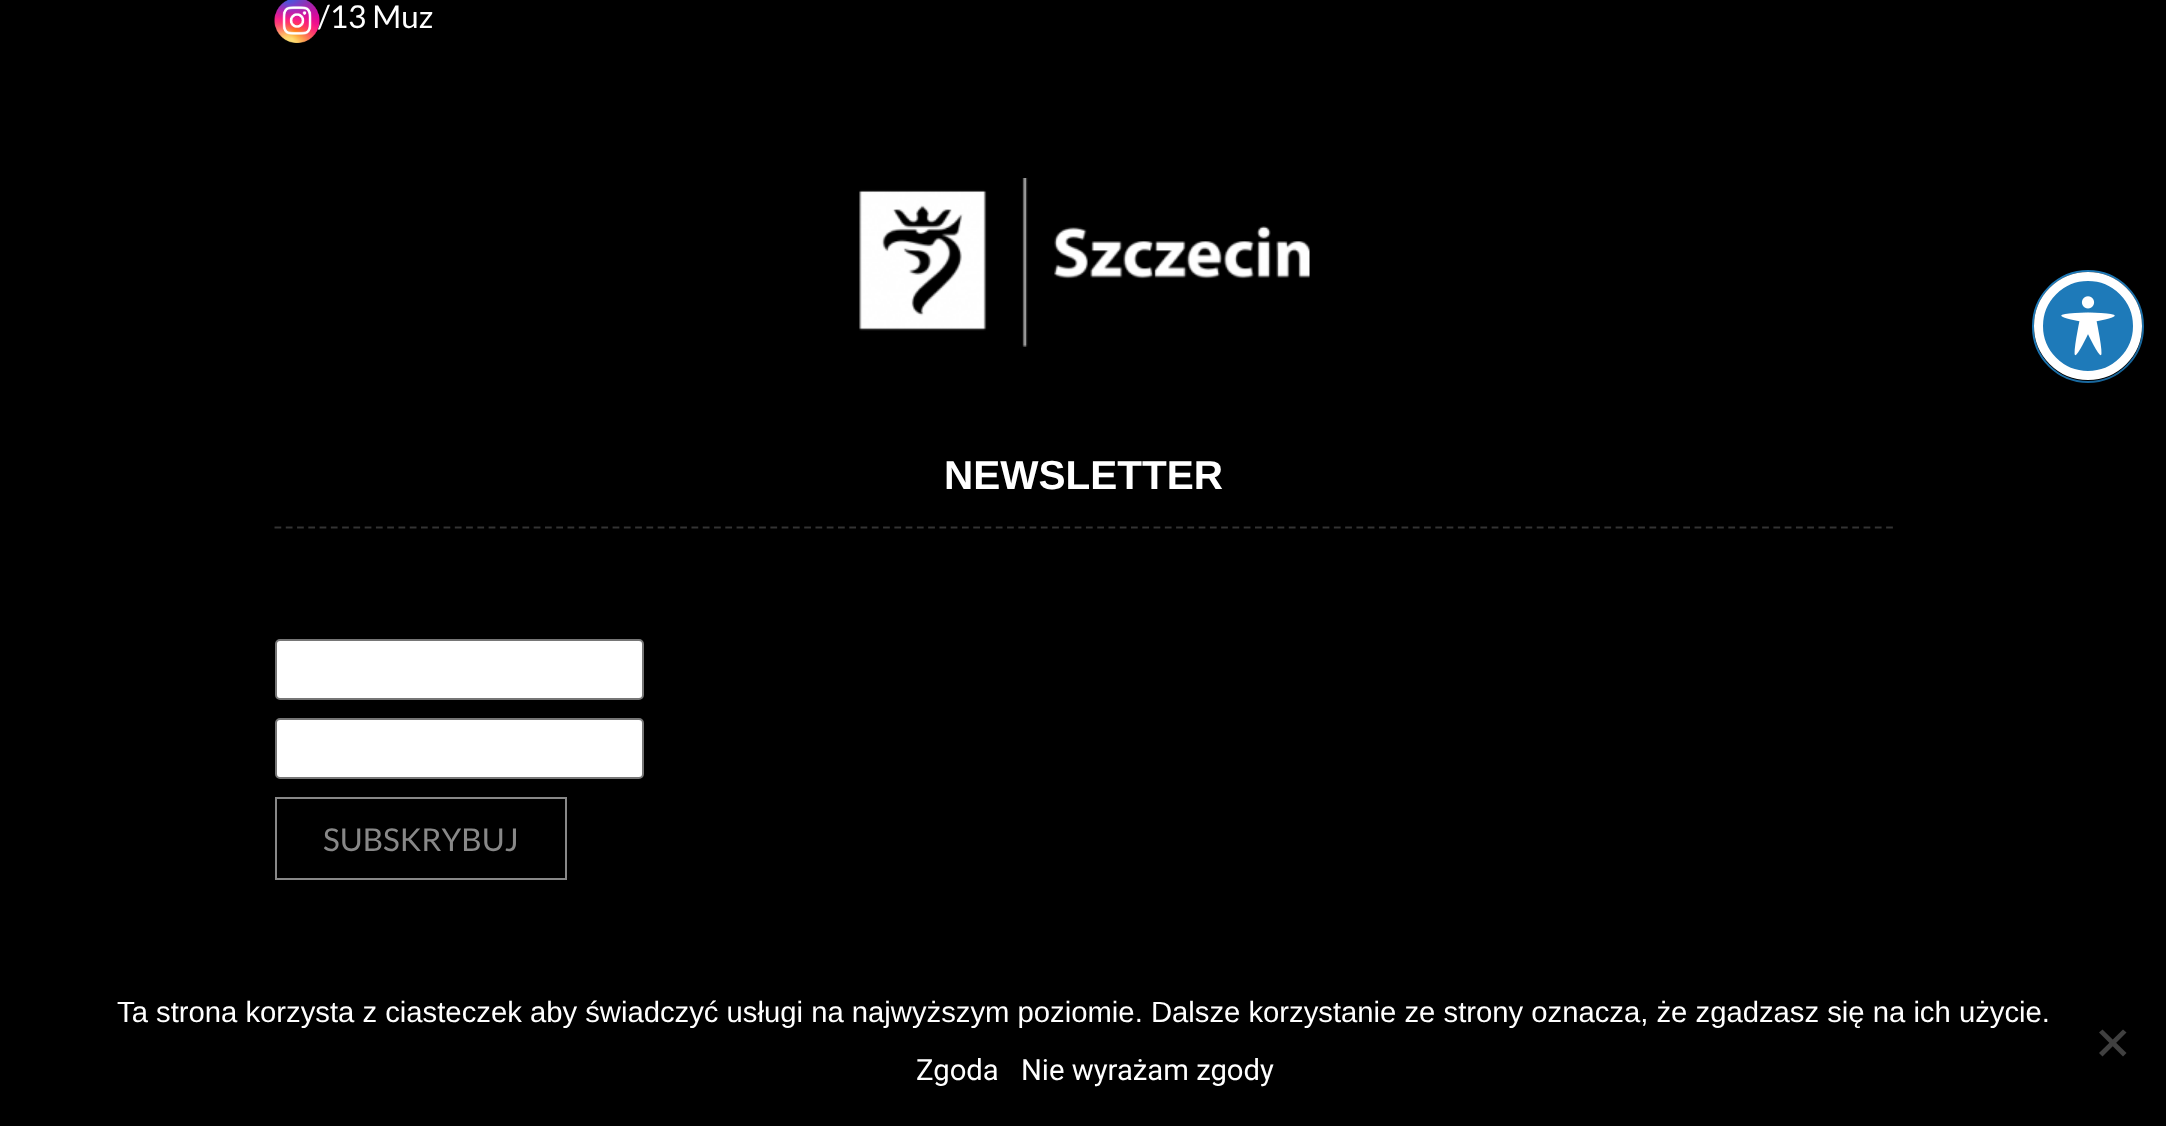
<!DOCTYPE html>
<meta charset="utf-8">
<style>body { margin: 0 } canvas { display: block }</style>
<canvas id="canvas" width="2166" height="1126"></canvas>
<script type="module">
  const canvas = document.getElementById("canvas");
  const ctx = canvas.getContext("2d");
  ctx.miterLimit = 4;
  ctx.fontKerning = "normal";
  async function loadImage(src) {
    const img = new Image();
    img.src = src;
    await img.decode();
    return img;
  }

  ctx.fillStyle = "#000000";
  ctx.fillRect(0, 0, 2166, 1126);
  ctx.drawImage(await loadImage("img1.png"), 274, 0, 46, 43);
  ctx.font = "31.5px Lato";
  ctx.fillStyle = "#ffffff";
  ctx.fillText("/13 Muz", 318, 28);
  ctx.drawImage(await loadImage("img2.png"), 859, 178, 451, 169);
  ctx.beginPath();
  ctx.moveTo(274.5, 527.5);
  ctx.lineTo(1894.5, 527.5);
  ctx.strokeStyle = "#333333";
  ctx.lineWidth = 2.2;
  ctx.setLineDash([6.75, 4.52]);
  ctx.stroke();
  ctx.font = "bold 40.5px Liberation Sans";
  ctx.fillText("NEWSLETTER", 944, 489);
  ctx.beginPath();
  ctx.roundRect(276, 640, 367, 59, 4);
  ctx.fill();
  ctx.strokeStyle = "#767676";
  ctx.lineWidth = 2;
  ctx.setLineDash([]);
  ctx.stroke();
  ctx.beginPath();
  ctx.roundRect(276, 719, 367, 59, 4);
  ctx.fill();
  ctx.stroke();
  ctx.strokeStyle = "#888888";
  ctx.strokeRect(276, 798, 290, 81);
  ctx.font = "31.5px Lato";
  ctx.fillStyle = "#888888";
  ctx.fillText("SUBSKRYBUJ", 323, 851);
  ctx.beginPath();
  ctx.roundRect(2033, 271, 110, 111, 55);
  ctx.strokeStyle = "#1e7ab9";
  ctx.stroke();
  ctx.fillStyle = "rgba(0, 0, 0, 0.2)";
  ctx.filter = "blur(18px)";
  ctx.beginPath();
  ctx.roundRect(2048, 290, 108, 108, 54);
  ctx.fill();
  ctx.filter = "none";
  ctx.fillStyle = "#1e7ab9";
  ctx.beginPath();
  ctx.arc(2088, 326, 49.5, 0, Math.PI * 2);
  ctx.fill();
  ctx.strokeStyle = "#ffffff";
  ctx.lineWidth = 9;
  ctx.stroke();
  ctx.drawImage(await loadImage("img3.png"), 2061, 296, 54, 60);
  ctx.font = "29.25px Liberation Sans";
  ctx.fillStyle = "#ffffff";
  ctx.fillText("Ta strona korzysta z ciasteczek aby świadczyć usługi na najwyższym poziomie. Dalsze korzystanie ze strony oznacza, że zgadzasz się na ich użycie.", 117, 1022);
  ctx.fillStyle = "#404040";
  ctx.beginPath();
  ctx.moveTo(2123, 1029.5);
  ctx.lineTo(2126.5, 1032.5);
  ctx.lineTo(2102.5, 1056.5);
  ctx.lineTo(2099, 1053);
  ctx.closePath();
  ctx.fill();
  ctx.beginPath();
  ctx.moveTo(2099, 1032.5);
  ctx.lineTo(2102.5, 1029.5);
  ctx.lineTo(2126.5, 1053);
  ctx.lineTo(2123, 1056.5);
  ctx.closePath();
  ctx.fill();
  ctx.font = "29.25px Roboto";
  ctx.fillStyle = "#ffffff";
  ctx.fillText("Zgoda", 916, 1080);
  ctx.fillText("Nie wyrażam zgody", 1021, 1080);
</script>
